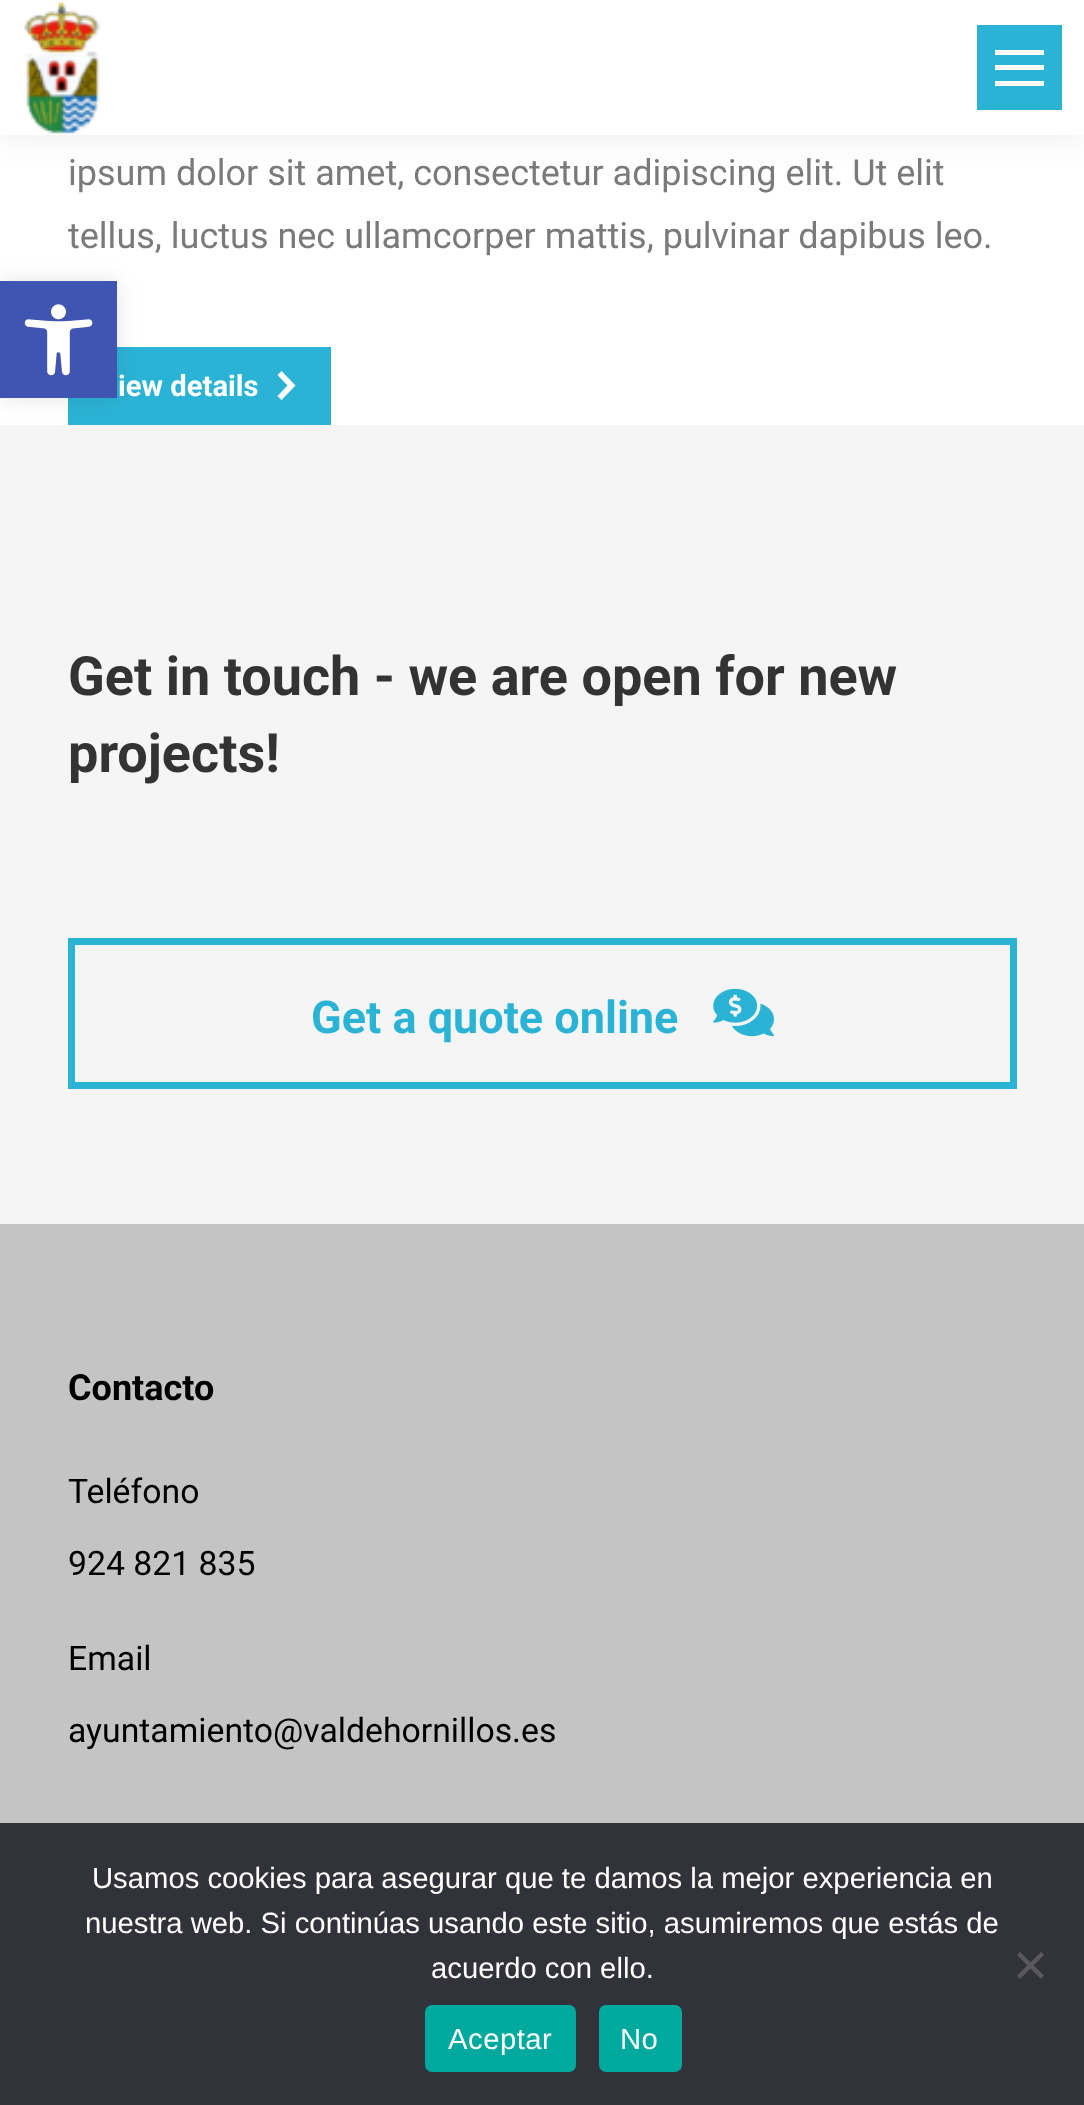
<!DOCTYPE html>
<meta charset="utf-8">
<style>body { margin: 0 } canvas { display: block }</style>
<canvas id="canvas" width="1084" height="2105"></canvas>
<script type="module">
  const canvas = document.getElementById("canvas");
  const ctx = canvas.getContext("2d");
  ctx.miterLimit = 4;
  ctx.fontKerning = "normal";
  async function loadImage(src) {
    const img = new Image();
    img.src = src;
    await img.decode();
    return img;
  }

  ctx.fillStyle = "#ffffff";
  ctx.fillRect(0, 0, 1084, 2105);
  ctx.fillStyle = "rgba(0, 0, 0, 0.07)";
  ctx.filter = "blur(17px)";
  ctx.beginPath();
  ctx.rect(-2, -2, 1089, 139);
  ctx.fill();
  ctx.filter = "none";
  ctx.fillStyle = "#ffffff";
  ctx.fillRect(0, 0, 1084, 135);
  ctx.drawImage(await loadImage("img1.png"), 24, 1, 76, 133);
  ctx.fillStyle = "#2bb3d5";
  ctx.fillRect(977, 25, 85, 85);
  ctx.fillStyle = "#ffffff";
  ctx.fillRect(995, 50, 49, 5);
  ctx.fillRect(995, 65, 49, 5);
  ctx.fillRect(995, 81, 49, 5);
  ctx.font = "36px Roboto";
  ctx.fillStyle = "#7a7a7a";
  ctx.fillText("ipsum dolor sit amet, consectetur adipiscing elit. Ut elit", 68, 185);
  ctx.fillText("tellus, luctus nec ullamcorper mattis, pulvinar dapibus leo.", 68, 248);
  ctx.fillStyle = "#2bb3d5";
  ctx.fillRect(68, 347, 263, 78);
  ctx.font = "bold 29.25px Roboto";
  ctx.fillStyle = "#ffffff";
  ctx.fillText("iew details", 118, 396);
  ctx.beginPath();
  ctx.moveTo(281.5, 400);
  ctx.lineTo(295.5, 385.5);
  ctx.lineTo(281.5, 371);
  ctx.lineTo(277.5, 375);
  ctx.lineTo(287.5, 385.5);
  ctx.lineTo(277.5, 396);
  ctx.closePath();
  ctx.fill();
  ctx.fillStyle = "#f5f5f5";
  ctx.fillRect(0, 425, 1084, 799);
  ctx.font = "bold 54px Roboto";
  ctx.fillStyle = "#333333";
  ctx.fillText("Get in touch - we are open for new", 68, 695);
  ctx.fillText("projects!", 68, 772);
  ctx.strokeStyle = "#2bb3d5";
  ctx.lineWidth = 7;
  ctx.strokeRect(71.5, 941.5, 942, 144);
  ctx.font = "bold 45px Roboto";
  ctx.fillStyle = "#2bb3d5";
  ctx.fillText("Get a quote online", 311, 1033);
  ctx.drawImage(await loadImage("img2.png"), 713, 988, 61, 49);
  ctx.fillStyle = "#c4c4c4";
  ctx.fillRect(0, 1224, 1084, 599);
  ctx.font = "bold 36px Roboto";
  ctx.fillStyle = "#000000";
  ctx.fillText("Contacto", 68, 1400);
  ctx.font = "33.75px Roboto";
  ctx.fillText("Teléfono", 68, 1503);
  ctx.fillText("924 821 835", 68, 1575);
  ctx.fillText("Email", 68, 1670);
  ctx.fillText("ayuntamiento@valdehornillos.es", 68, 1742);
  ctx.fillStyle = "rgba(0, 0, 0, 0.1)";
  ctx.filter = "blur(11px)";
  ctx.beginPath();
  ctx.rect(0, 281, 117, 117);
  ctx.fill();
  ctx.filter = "none";
  ctx.fillStyle = "#4054b2";
  ctx.fillRect(0, 281, 117, 117);
  ctx.drawImage(await loadImage("img3.png"), 24, 304, 69, 72);
  ctx.fillStyle = "#32323a";
  ctx.fillRect(0, 1823, 1084, 282);
  ctx.font = "29.25px Liberation Sans";
  ctx.fillStyle = "#ffffff";
  ctx.fillText("Usamos cookies para asegurar que te damos la mejor experiencia en", 92, 1888);
  ctx.fillText("nuestra web. Si continúas usando este sitio, asumiremos que estás de", 85, 1933);
  ctx.fillText("acuerdo con ello.", 431, 1978);
  ctx.fillStyle = "#59595d";
  ctx.beginPath();
  ctx.moveTo(1041, 1952);
  ctx.lineTo(1044, 1955);
  ctx.lineTo(1020, 1979);
  ctx.lineTo(1017, 1975.5);
  ctx.closePath();
  ctx.fill();
  ctx.beginPath();
  ctx.moveTo(1017, 1955);
  ctx.lineTo(1020, 1952);
  ctx.lineTo(1044, 1975.5);
  ctx.lineTo(1041, 1979);
  ctx.closePath();
  ctx.fill();
  ctx.fillStyle = "#00a99d";
  ctx.beginPath();
  ctx.roundRect(425, 2005, 151, 67, 7);
  ctx.fill();
  ctx.letterSpacing = "0.5px";
  ctx.fillStyle = "#ffffff";
  ctx.fillText("Aceptar", 448, 2049);
  ctx.fillStyle = "#00a99d";
  ctx.beginPath();
  ctx.roundRect(599, 2005, 83, 67, 7);
  ctx.fill();
  ctx.fillStyle = "#ffffff";
  ctx.fillText("No", 620, 2049);
</script>
